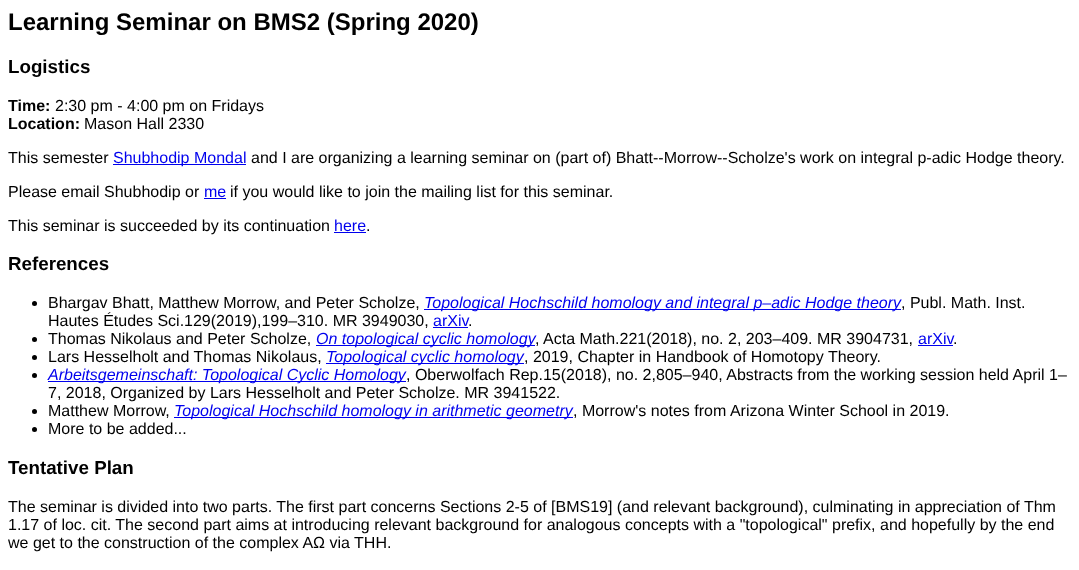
<!DOCTYPE html>
<meta charset="utf-8">
<style>body { margin: 0 } canvas { display: block }</style>
<canvas id="canvas" width="1079" height="570"></canvas>
<script type="module">
  const canvas = document.getElementById("canvas");
  const ctx = canvas.getContext("2d");
  ctx.miterLimit = 4;
  ctx.fontKerning = "normal";

  ctx.fillStyle = "#ffffff";
  ctx.fillRect(0, 0, 1079, 570);
  ctx.font = "bold 24px Liberation Sans";
  ctx.fillStyle = "#000000";
  ctx.fillText("Learning Seminar on BMS2 (Spring 2020)", 8, 30);
  ctx.font = "bold 18.75px Liberation Sans";
  ctx.fillText("Logistics", 8, 73);
  ctx.font = "bold 16px Liberation Sans";
  ctx.fillText("Time:", 8, 111);
  ctx.font = "16px Liberation Sans";
  ctx.fillText("2:30 pm - 4:00 pm on Fridays", 55, 111);
  ctx.font = "bold 16px Liberation Sans";
  ctx.fillText("Location:", 8, 129);
  ctx.font = "16px Liberation Sans";
  ctx.fillText("Mason Hall 2330", 84, 129);
  ctx.fillText("This semester", 8, 163);
  ctx.fillStyle = "#0000ee";
  ctx.fillRect(113, 164, 133, 1);
  ctx.fillText("Shubhodip Mondal", 113, 163);
  ctx.fillStyle = "#000000";
  ctx.fillText("and I are organizing a learning seminar on (part of) Bhatt--Morrow--Scholze's work on integral p-adic Hodge theory.", 251, 163);
  ctx.fillText("Please email Shubhodip or", 8, 197);
  ctx.fillStyle = "#0000ee";
  ctx.fillText("me", 204, 197);
  ctx.fillRect(204, 198, 22, 1);
  ctx.fillStyle = "#000000";
  ctx.fillText("if you would like to join the mailing list for this seminar.", 230, 197);
  ctx.fillText("This seminar is succeeded by its continuation", 8, 231);
  ctx.fillStyle = "#0000ee";
  ctx.fillText("here", 334, 231);
  ctx.fillRect(334, 232, 32, 1);
  ctx.fillStyle = "#000000";
  ctx.fillText(".", 366, 231);
  ctx.font = "bold 18.75px Liberation Sans";
  ctx.fillText("References", 8, 270);
  ctx.beginPath();
  ctx.arc(34.5, 303.5, 2.5, 0, Math.PI * 2);
  ctx.fill();
  ctx.font = "16px Liberation Sans";
  ctx.fillText("Bhargav Bhatt, Matthew Morrow, and Peter Scholze,", 48, 308);
  ctx.fillStyle = "#0000ee";
  ctx.fillRect(424, 309, 477, 1);
  ctx.font = "italic 16px Liberation Sans";
  ctx.fillText("Topological Hochschild homology and integral p–adic Hodge theory", 424, 308);
  ctx.font = "16px Liberation Sans";
  ctx.fillStyle = "#000000";
  ctx.fillText(", Publ. Math. Inst.", 901, 308);
  ctx.fillText("Hautes Études Sci.129(2019),199–310. MR 3949030,", 48, 326);
  ctx.fillStyle = "#0000ee";
  ctx.fillText("arXiv", 433, 326);
  ctx.fillRect(433, 327, 35, 1);
  ctx.fillStyle = "#000000";
  ctx.fillText(".", 468, 326);
  ctx.beginPath();
  ctx.arc(34.5, 339.5, 2.5, 0, Math.PI * 2);
  ctx.fill();
  ctx.fillText("Thomas Nikolaus and Peter Scholze,", 48, 344);
  ctx.fillStyle = "#0000ee";
  ctx.fillRect(316, 345, 219, 1);
  ctx.font = "italic 16px Liberation Sans";
  ctx.fillText("On topological cyclic homology", 316, 344);
  ctx.font = "16px Liberation Sans";
  ctx.fillStyle = "#000000";
  ctx.fillText(", Acta Math.221(2018), no. 2, 203–409. MR 3904731,", 535, 344);
  ctx.fillStyle = "#0000ee";
  ctx.fillText("arXiv", 918, 344);
  ctx.fillRect(918, 345, 35, 1);
  ctx.fillStyle = "#000000";
  ctx.fillText(".", 953, 344);
  ctx.beginPath();
  ctx.arc(34.5, 357.5, 2.5, 0, Math.PI * 2);
  ctx.fill();
  ctx.fillText("Lars Hesselholt and Thomas Nikolaus,", 48, 362);
  ctx.fillStyle = "#0000ee";
  ctx.fillRect(326, 363, 198, 1);
  ctx.font = "italic 16px Liberation Sans";
  ctx.fillText("Topological cyclic homology", 326, 362);
  ctx.font = "16px Liberation Sans";
  ctx.fillStyle = "#000000";
  ctx.fillText(", 2019, Chapter in Handbook of Homotopy Theory.", 524, 362);
  ctx.beginPath();
  ctx.arc(34.5, 375.5, 2.5, 0, Math.PI * 2);
  ctx.fill();
  ctx.fillStyle = "#0000ee";
  ctx.fillRect(48, 381, 358, 1);
  ctx.font = "italic 16px Liberation Sans";
  ctx.fillText("Arbeitsgemeinschaft: Topological Cyclic Homology", 48, 380);
  ctx.font = "16px Liberation Sans";
  ctx.fillStyle = "#000000";
  ctx.fillText(", Oberwolfach Rep.15(2018), no. 2,805–940, Abstracts from the working session held April 1–", 406, 380);
  ctx.fillText("7, 2018, Organized by Lars Hesselholt and Peter Scholze. MR 3941522.", 48, 398);
  ctx.beginPath();
  ctx.arc(34.5, 411.5, 2.5, 0, Math.PI * 2);
  ctx.fill();
  ctx.fillText("Matthew Morrow,", 48, 416);
  ctx.fillStyle = "#0000ee";
  ctx.fillRect(174, 417, 399, 1);
  ctx.font = "italic 16px Liberation Sans";
  ctx.fillText("Topological Hochschild homology in arithmetic geometry", 174, 416);
  ctx.font = "16px Liberation Sans";
  ctx.fillStyle = "#000000";
  ctx.fillText(", Morrow's notes from Arizona Winter School in 2019.", 573, 416);
  ctx.beginPath();
  ctx.arc(34.5, 429.5, 2.5, 0, Math.PI * 2);
  ctx.fill();
  ctx.fillText("More to be added...", 48, 434);
  ctx.font = "bold 18.75px Liberation Sans";
  ctx.fillText("Tentative Plan", 8, 474);
  ctx.font = "16px Liberation Sans";
  ctx.fillText("The seminar is divided into two parts. The first part concerns Sections 2-5 of [BMS19] (and relevant background), culminating in appreciation of Thm", 8, 512);
  ctx.fillText("1.17 of loc. cit. The second part aims at introducing relevant background for analogous concepts with a \"topological\" prefix, and hopefully by the end", 8, 530);
  ctx.fillText("we get to the construction of the complex AΩ via THH.", 8, 548);
</script>
